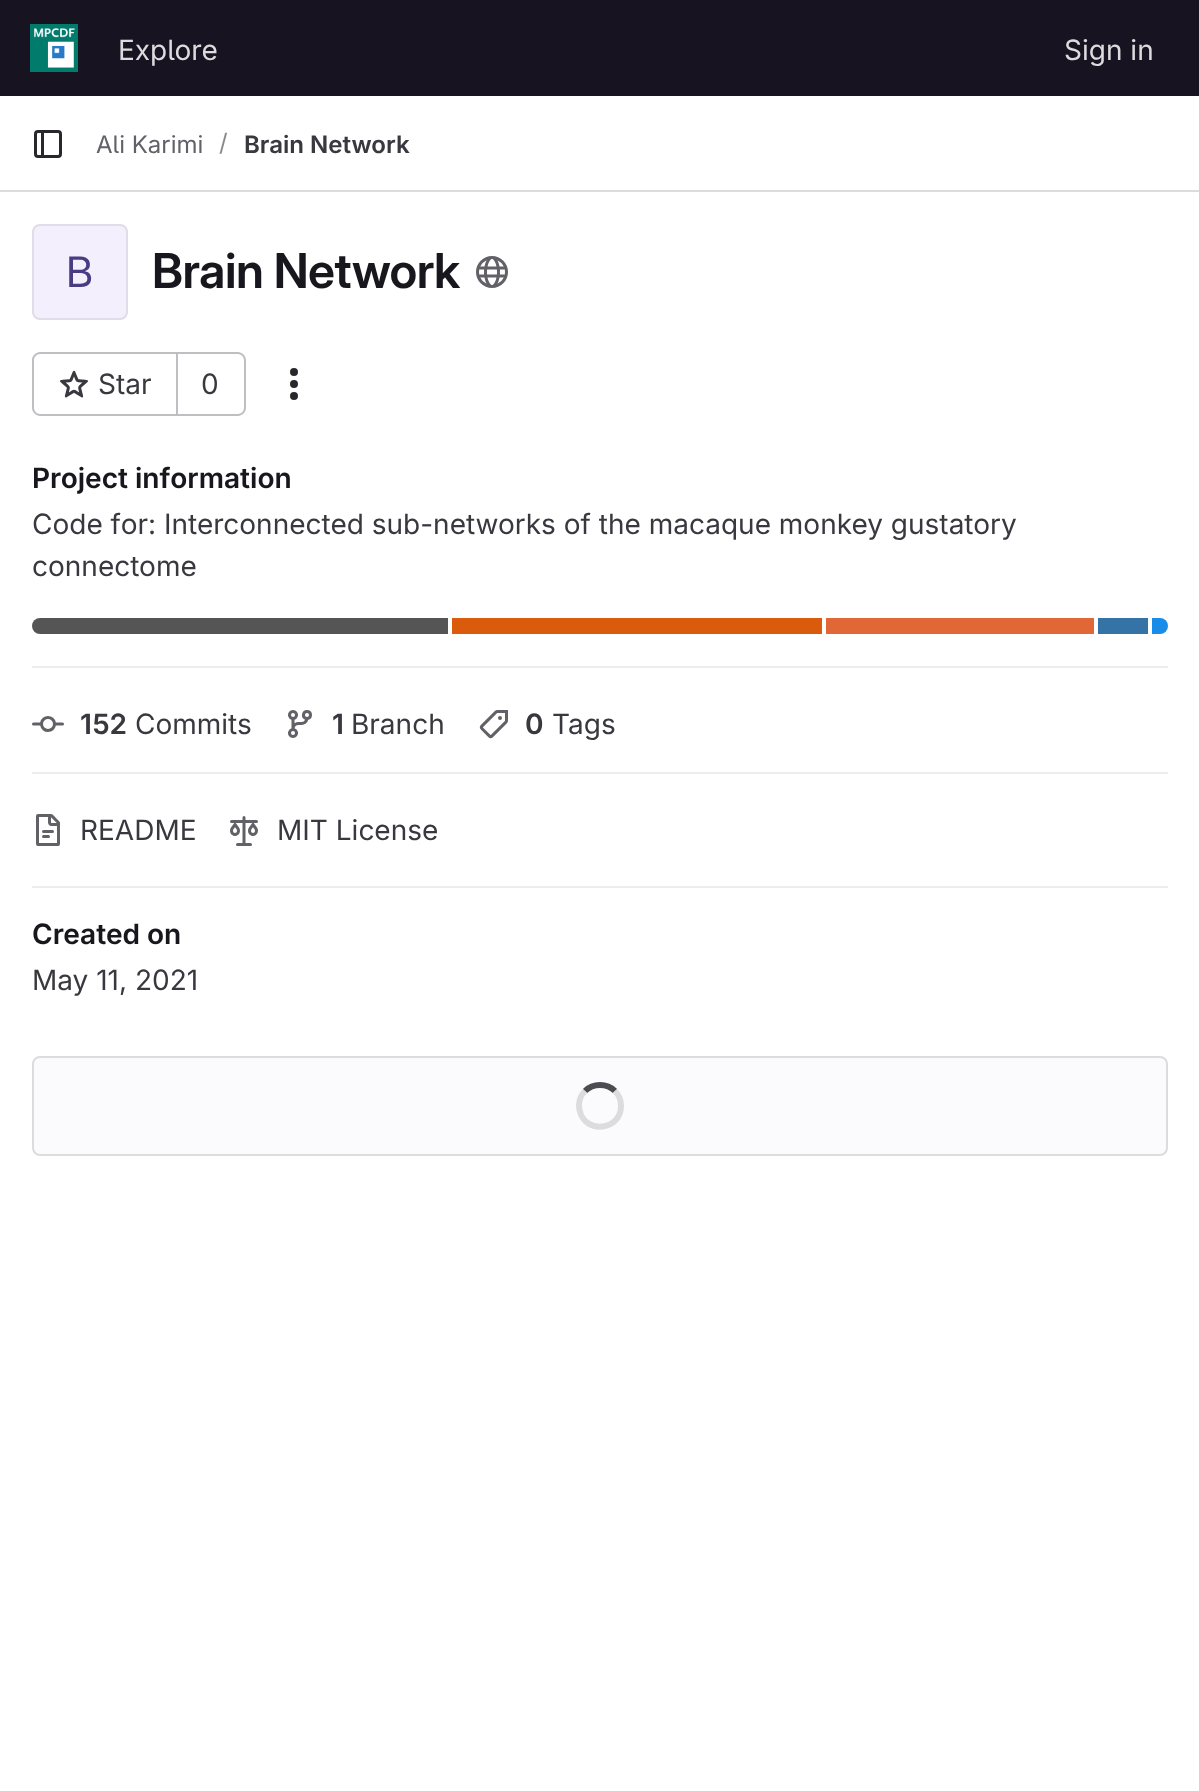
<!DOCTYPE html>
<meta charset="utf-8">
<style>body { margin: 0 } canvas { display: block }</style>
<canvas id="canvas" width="1199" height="1791"></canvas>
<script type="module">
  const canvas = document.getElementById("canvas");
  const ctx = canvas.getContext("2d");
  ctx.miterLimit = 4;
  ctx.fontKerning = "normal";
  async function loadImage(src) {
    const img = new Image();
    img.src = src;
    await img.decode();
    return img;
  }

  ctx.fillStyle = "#ffffff";
  ctx.fillRect(0, 0, 1199, 1791);
  ctx.fillStyle = "#171321";
  ctx.fillRect(0, 0, 1199, 96);
  ctx.drawImage(await loadImage("img1.png"), 30, 24, 48, 48);
  ctx.font = "28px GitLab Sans";
  ctx.fillStyle = "#dcdcde";
  ctx.fillText("Explore", 118, 60);
  ctx.fillText("Sign in", 1064, 60);
  ctx.fillRect(0, 190, 1199, 2);
  ctx.drawImage(await loadImage("img2.png"), 34, 130, 28, 28);
  ctx.font = "24px GitLab Sans";
  ctx.fillStyle = "#626168";
  ctx.fillText("Ali Karimi", 96, 153);
  ctx.fillStyle = "#89888d";
  ctx.fillText("/", 219, 151);
  ctx.font = "600 24px 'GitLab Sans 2'";
  ctx.fillStyle = "#3a383f";
  ctx.fillText("Brain Network", 244, 153);
  ctx.fillStyle = "#f3effc";
  ctx.beginPath();
  ctx.roundRect(32, 224, 96, 96, 8);
  ctx.fill();
  ctx.beginPath();
  ctx.roundRect(33, 225, 94, 94, 7);
  ctx.strokeStyle = "rgba(5, 5, 6, 0.08)";
  ctx.lineWidth = 2;
  ctx.stroke();
  ctx.font = "42px 'GitLab Sans 2'";
  ctx.fillStyle = "#493c83";
  ctx.fillText("B", 66, 287);
  ctx.letterSpacing = "-0.5px";
  ctx.font = "600 48px GitLab Sans";
  ctx.fillStyle = "#18171d";
  ctx.fillText("Brain Network", 152, 288);
  ctx.drawImage(await loadImage("img3.png"), 476, 256, 32, 32);
  ctx.fillStyle = "#bfbfc3";
  ctx.beginPath();
  ctx.moveTo(40, 352);
  ctx.lineTo(176, 352);
  ctx.lineTo(176, 416);
  ctx.lineTo(40, 416);
  ctx.bezierCurveTo(36, 416, 32, 412, 32, 408);
  ctx.lineTo(32, 360);
  ctx.bezierCurveTo(32, 356, 36, 352, 40, 352);
  ctx.closePath();
  ctx.moveTo(40, 354);
  ctx.lineTo(176, 354);
  ctx.lineTo(176, 414);
  ctx.lineTo(40, 414);
  ctx.bezierCurveTo(37, 414, 34, 411, 34, 408);
  ctx.lineTo(34, 360);
  ctx.bezierCurveTo(34, 357, 37, 354, 40, 354);
  ctx.closePath();
  ctx.fill("evenodd");
  ctx.drawImage(await loadImage("img4.png"), 60, 370, 28, 28);
  ctx.letterSpacing = "0px";
  ctx.font = "28px GitLab Sans";
  ctx.fillStyle = "#3a383f";
  ctx.fillText("Star", 98, 394);
  ctx.fillStyle = "#bfbfc3";
  ctx.beginPath();
  ctx.moveTo(178, 352);
  ctx.lineTo(238, 352);
  ctx.bezierCurveTo(242, 352, 246, 356, 246, 360);
  ctx.lineTo(246, 408);
  ctx.bezierCurveTo(246, 412, 242, 416, 238, 416);
  ctx.lineTo(178, 416);
  ctx.closePath();
  ctx.moveTo(178, 354);
  ctx.lineTo(238, 354);
  ctx.bezierCurveTo(241, 354, 244, 357, 244, 360);
  ctx.lineTo(244, 408);
  ctx.bezierCurveTo(244, 411, 241, 414, 238, 414);
  ctx.lineTo(178, 414);
  ctx.closePath();
  ctx.fill("evenodd");
  ctx.fillRect(176, 352, 2, 64);
  ctx.fillStyle = "#3a383f";
  ctx.fillText("0", 201, 394);
  ctx.drawImage(await loadImage("img5.png"), 290, 368, 8, 32);
  ctx.fillStyle = "#ececef";
  ctx.fillRect(32, 666, 1136, 2);
  ctx.font = "600 28px 'GitLab Sans 2'";
  ctx.fillStyle = "#18171d";
  ctx.fillText("Project information", 32, 488);
  ctx.font = "28px GitLab Sans";
  ctx.fillStyle = "#3a383f";
  ctx.fillText("Code for: Interconnected sub-networks of the macaque monkey gustatory", 32, 534);
  ctx.fillText("connectome", 32, 576);
  ctx.fillStyle = "#555555";
  ctx.beginPath();
  ctx.roundRect(32, 618, 416, 16, [8, 0, 0, 8]);
  ctx.fill();
  ctx.fillStyle = "#da5b0b";
  ctx.fillRect(452, 618, 370, 16);
  ctx.fillStyle = "#e16737";
  ctx.fillRect(826, 618, 268, 16);
  ctx.fillStyle = "#3572a5";
  ctx.fillRect(1098, 618, 50, 16);
  ctx.fillStyle = "#198ce7";
  ctx.beginPath();
  ctx.roundRect(1152, 618, 16, 16, [0, 8, 8, 0]);
  ctx.fill();
  ctx.fillStyle = "#ececef";
  ctx.fillRect(32, 772, 1136, 2);
  ctx.drawImage(await loadImage("img6.png"), 32, 716, 32, 16);
  ctx.font = "600 28px 'GitLab Sans 2'";
  ctx.fillStyle = "#3a383f";
  ctx.fillText("152", 80, 734);
  ctx.font = "28px GitLab Sans";
  ctx.fillText("Commits", 135, 734);
  ctx.drawImage(await loadImage("img7.png"), 288, 710, 24, 28);
  ctx.font = "600 28px 'GitLab Sans 2'";
  ctx.fillText("1", 332, 734);
  ctx.font = "28px GitLab Sans";
  ctx.fillText("Branch", 351, 734);
  ctx.drawImage(await loadImage("img8.png"), 479, 710, 29, 29);
  ctx.font = "600 28px 'GitLab Sans 2'";
  ctx.fillText("0", 525, 734);
  ctx.font = "28px GitLab Sans";
  ctx.fillText("Tags", 552, 734);
  ctx.fillStyle = "#ececef";
  ctx.fillRect(32, 886, 1136, 2);
  ctx.drawImage(await loadImage("img9.png"), 36, 814, 24, 32);
  ctx.fillStyle = "#3a383f";
  ctx.fillText("README", 80, 840);
  ctx.drawImage(await loadImage("img10.png"), 230, 816, 28, 30);
  ctx.fillText("MIT License", 277, 840);
  ctx.font = "600 28px 'GitLab Sans 2'";
  ctx.fillStyle = "#18171d";
  ctx.fillText("Created on", 32, 944);
  ctx.font = "28px GitLab Sans";
  ctx.fillStyle = "#3a383f";
  ctx.fillText("May 11, 2021", 32, 990);
  ctx.fillStyle = "#fbfafd";
  ctx.beginPath();
  ctx.roundRect(33, 1057, 1134, 98, 7);
  ctx.fill();
  ctx.strokeStyle = "#dcdcde";
  ctx.stroke();
  ctx.beginPath();
  ctx.moveTo(585, 1091);
  ctx.bezierCurveTo(593, 1083, 607, 1083, 615, 1091);
  ctx.strokeStyle = "#4c4b51";
  ctx.lineWidth = 6;
  ctx.stroke();
  ctx.beginPath();
  ctx.moveTo(615, 1091);
  ctx.bezierCurveTo(619, 1095, 621, 1100.5, 621, 1106);
  ctx.bezierCurveTo(621, 1131, 584.5, 1134.5, 579.5, 1110);
  ctx.bezierCurveTo(578, 1103.5, 580, 1096, 585, 1091);
  ctx.strokeStyle = "#dcdcde";
  ctx.stroke();
</script>
